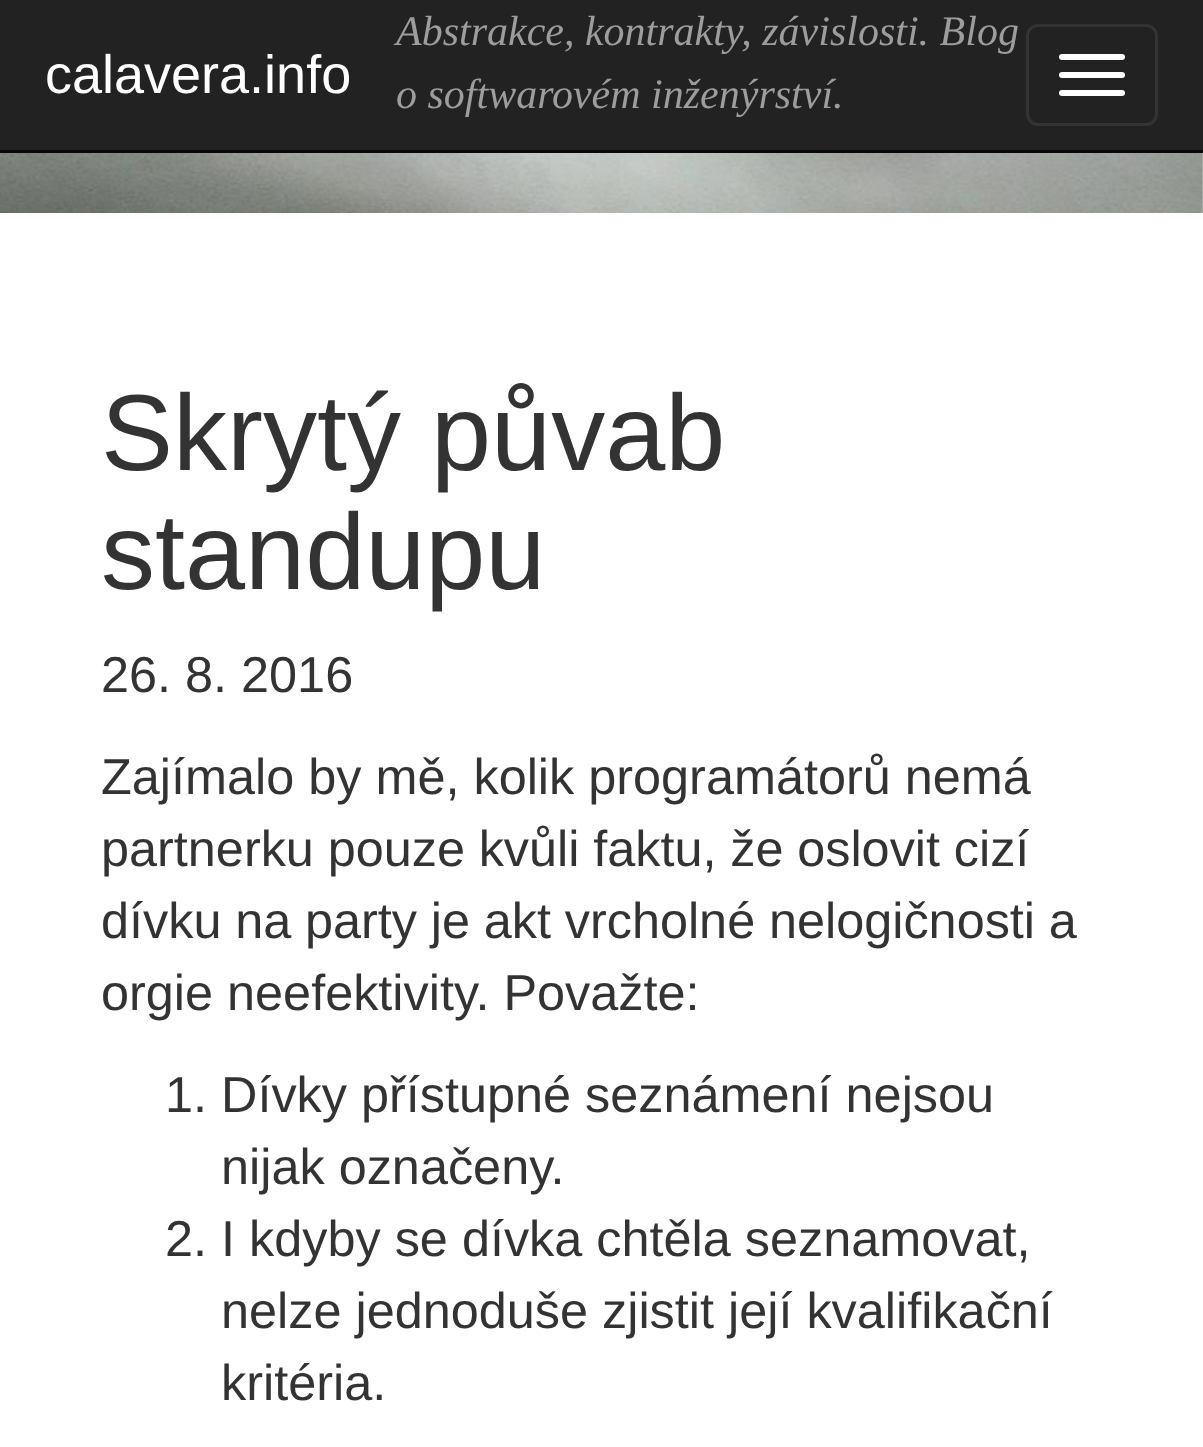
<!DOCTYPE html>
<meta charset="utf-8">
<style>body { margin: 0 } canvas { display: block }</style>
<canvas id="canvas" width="1203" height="1447"></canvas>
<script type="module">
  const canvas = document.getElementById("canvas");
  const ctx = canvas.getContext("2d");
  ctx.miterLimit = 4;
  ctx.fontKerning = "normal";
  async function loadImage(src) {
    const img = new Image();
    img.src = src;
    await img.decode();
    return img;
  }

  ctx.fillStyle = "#ffffff";
  ctx.fillRect(0, 0, 1203, 1447);
  ctx.drawImage(await loadImage("img1.png"), 0, 153, 1203, 60);
  ctx.fillStyle = "#222222";
  ctx.fillRect(0, 0, 1203, 150);
  ctx.fillStyle = "#080808";
  ctx.fillRect(0, 150, 1203, 3);
  ctx.font = "54px Liberation Sans";
  ctx.fillStyle = "#ffffff";
  ctx.fillText("calavera.info", 45, 93);
  ctx.font = "italic 42px Liberation Serif";
  ctx.fillStyle = "#9d9d9d";
  ctx.fillText("Abstrakce, kontrakty, závislosti. Blog", 396, 45);
  ctx.beginPath();
  ctx.roundRect(1027.5, 25.5, 129, 99, 10.5);
  ctx.strokeStyle = "#333333";
  ctx.lineWidth = 3;
  ctx.stroke();
  ctx.fillStyle = "#ffffff";
  ctx.beginPath();
  ctx.roundRect(1059, 54, 66, 6, 3);
  ctx.fill();
  ctx.beginPath();
  ctx.roundRect(1059, 72, 66, 6, 3);
  ctx.fill();
  ctx.beginPath();
  ctx.roundRect(1059, 90, 66, 6, 3);
  ctx.fill();
  ctx.fillStyle = "#9d9d9d";
  ctx.fillText("o softwarovém inženýrství.", 396, 108);
  ctx.font = "108px Liberation Sans";
  ctx.fillStyle = "#333333";
  ctx.fillText("Skrytý půvab", 101, 470);
  ctx.fillText("standupu", 101, 589);
  ctx.font = "50.4px Liberation Sans";
  ctx.fillText("26. 8. 2016", 101, 692);
  ctx.fillText("Zajímalo by mě, kolik programátorů nemá", 101, 794);
  ctx.wordSpacing = "-0.25px";
  ctx.fillText("partnerku pouze kvůli faktu, že oslovit cizí", 101, 866);
  ctx.fillText("dívku na party je akt vrcholné nelogičnosti a", 101, 938);
  ctx.wordSpacing = "0px";
  ctx.fillText("orgie neefektivity. Považte:", 101, 1010);
  ctx.fillText("1. Dívky přístupné seznámení nejsou", 165, 1112);
  ctx.fillText("nijak označeny.", 221, 1184);
  ctx.fillText("2. I kdyby se dívka chtěla seznamovat,", 165, 1256);
  ctx.fillText("nelze jednoduše zjistit její kvalifikační", 221, 1328);
  ctx.fillText("kritéria.", 221, 1400);
</script>
